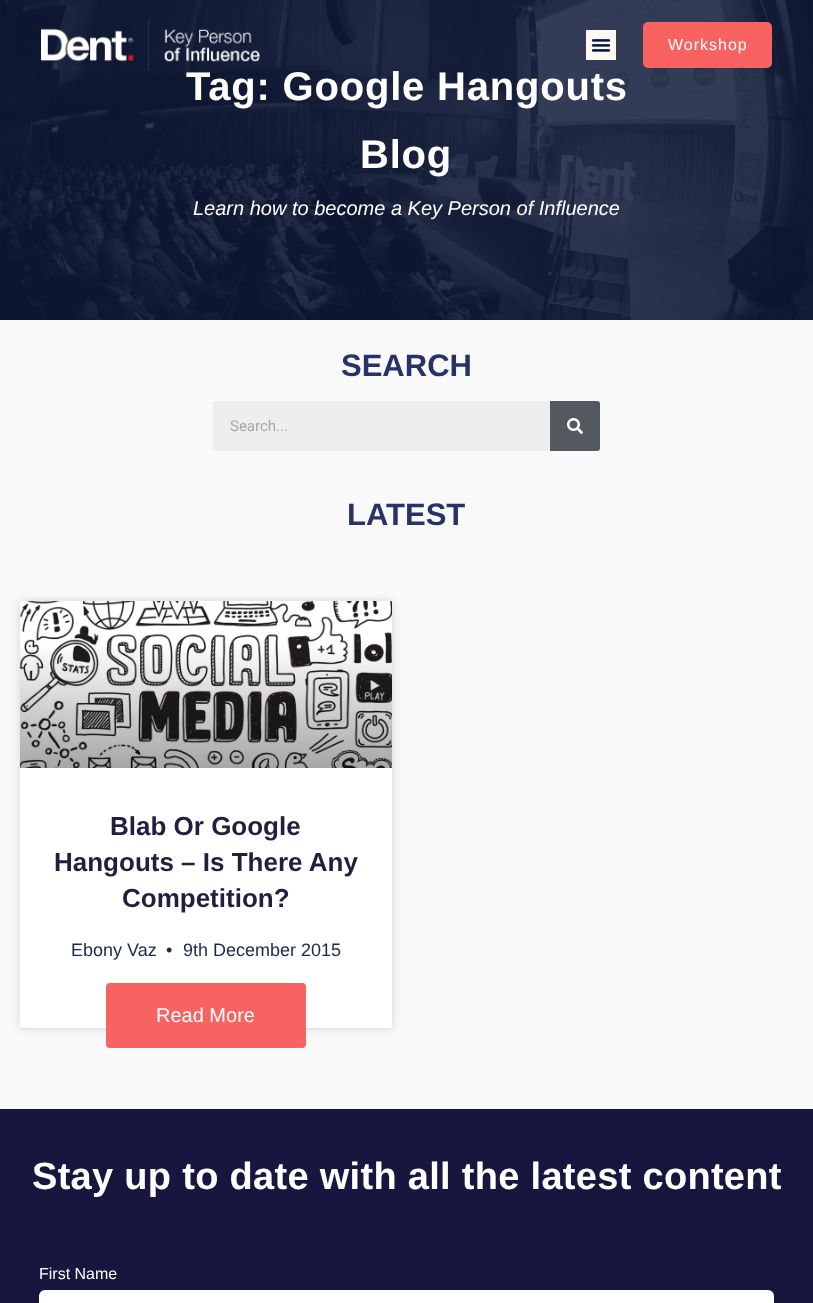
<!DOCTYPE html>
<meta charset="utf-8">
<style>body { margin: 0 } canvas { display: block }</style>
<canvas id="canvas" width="813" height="1303"></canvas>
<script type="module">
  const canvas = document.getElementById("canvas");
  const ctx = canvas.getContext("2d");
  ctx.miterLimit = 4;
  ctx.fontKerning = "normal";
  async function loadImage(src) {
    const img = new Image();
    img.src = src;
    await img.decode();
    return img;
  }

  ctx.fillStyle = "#f9f9f9";
  ctx.fillRect(0, 0, 813, 1303);
  ctx.fillStyle = "#101b39";
  ctx.fillRect(0, 0, 813, 320);
  ctx.drawImage(await loadImage("img3.png"), 0, 0, 813, 320);
  ctx.drawImage(await loadImage("img1.png"), 41, 19, 219, 52);
  ctx.fillStyle = "#fff7f1";
  ctx.fillRect(586, 30, 30, 30);
  ctx.drawImage(await loadImage("img2.png"), 591, 39, 20, 13);
  ctx.fillStyle = "#f86261";
  ctx.beginPath();
  ctx.roundRect(643, 22, 129, 46, 5);
  ctx.fill();
  ctx.letterSpacing = "1px";
  ctx.font = "16px Liberation Sans";
  ctx.fillStyle = "#ffffff";
  ctx.fillText("Workshop", 668, 50);
  ctx.letterSpacing = "0.8px";
  ctx.font = "bold 40px Liberation Sans";
  ctx.fillText("Tag: Google Hangouts", 186, 100);
  ctx.fillText("Blog", 360, 168);
  ctx.letterSpacing = "0px";
  ctx.font = "italic 20px Liberation Sans";
  ctx.fillText("Learn how to become a Key Person of Influence", 193, 215);
  ctx.font = "bold 31px Liberation Sans";
  ctx.fillStyle = "#263268";
  ctx.fillText("SEARCH", 341, 376);
  ctx.fillStyle = "#eceeef";
  ctx.beginPath();
  ctx.roundRect(213, 401, 387, 50, 3);
  ctx.fill();
  ctx.font = "15px Roboto";
  ctx.fillStyle = "#a8a8a9";
  ctx.fillText("Search...", 230, 431);
  ctx.fillStyle = "#54595f";
  ctx.beginPath();
  ctx.roundRect(550, 401, 50, 50, [0, 3, 3, 0]);
  ctx.fill();
  ctx.drawImage(await loadImage("img4.png"), 567, 418, 16, 16);
  ctx.font = "bold 31px Liberation Sans";
  ctx.fillStyle = "#263268";
  ctx.fillText("LATEST", 347, 525);
  ctx.fillStyle = "#f0f0f0";
  ctx.fillRect(20, 1028, 372, 1);
  ctx.fillStyle = "rgba(0, 0, 0, 0.15)";
  ctx.filter = "blur(5px)";
  ctx.beginPath();
  ctx.roundRect(20, 601, 372, 427, 3);
  ctx.fill();
  ctx.filter = "none";
  ctx.fillStyle = "#ffffff";
  ctx.beginPath();
  ctx.roundRect(20, 601, 372, 427, 3);
  ctx.fill();
  ctx.drawImage(await loadImage("img5.png"), 20, 601, 372, 167);
  ctx.font = "bold 26px Liberation Sans";
  ctx.fillStyle = "#211f40";
  ctx.fillText("Blab Or Google", 110, 835);
  ctx.fillText("Hangouts – Is There Any", 54, 871);
  ctx.fillText("Competition?", 122, 907);
  ctx.fillStyle = "#f86261";
  ctx.beginPath();
  ctx.roundRect(106, 983, 200, 65, 4);
  ctx.fill();
  ctx.font = "20px Liberation Sans";
  ctx.fillStyle = "#ffffff";
  ctx.fillText("Read More", 156, 1022);
  ctx.font = "18px Liberation Sans";
  ctx.fillStyle = "#18284e";
  ctx.fillText("Ebony Vaz", 71, 956);
  ctx.fillText("•", 166, 956);
  ctx.fillText("9th December 2015", 183, 956);
  ctx.fillStyle = "#16163f";
  ctx.fillRect(0, 1109, 813, 194);
  ctx.letterSpacing = "0.3px";
  ctx.font = "bold 38px Liberation Sans";
  ctx.fillStyle = "#ffffff";
  ctx.fillText("Stay up to date with all the latest content", 32, 1189);
  ctx.letterSpacing = "0px";
  ctx.font = "16px Liberation Sans";
  ctx.fillText("First Name", 39, 1279);
  ctx.beginPath();
  ctx.roundRect(39, 1290, 735, 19, 6);
  ctx.fill();
</script>
